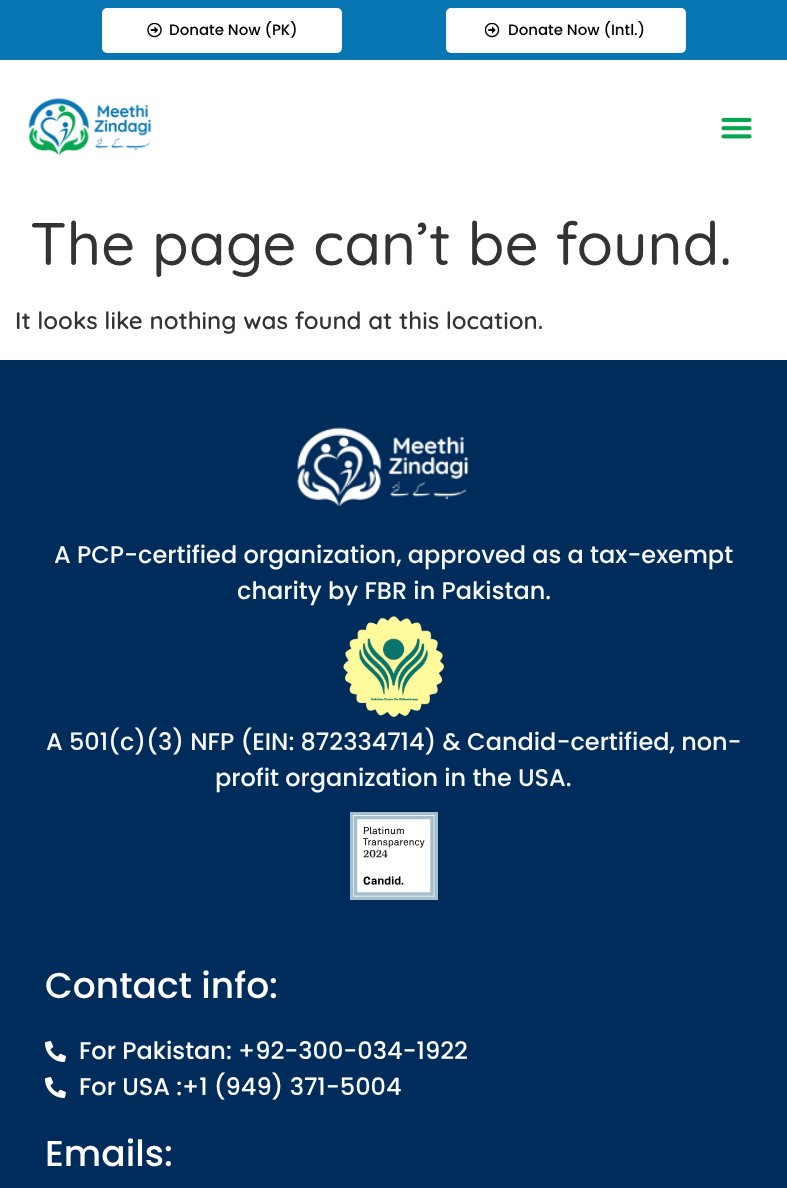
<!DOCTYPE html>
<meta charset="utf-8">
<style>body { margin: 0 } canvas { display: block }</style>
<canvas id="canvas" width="787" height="1188"></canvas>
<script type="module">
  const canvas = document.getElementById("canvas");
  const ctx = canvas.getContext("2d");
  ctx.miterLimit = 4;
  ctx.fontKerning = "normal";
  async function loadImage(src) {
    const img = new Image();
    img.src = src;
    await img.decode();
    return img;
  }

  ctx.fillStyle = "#ffffff";
  ctx.fillRect(0, 0, 787, 1188);
  ctx.fillStyle = "#0675b1";
  ctx.fillRect(0, 0, 787, 60);
  ctx.fillStyle = "#ffffff";
  ctx.beginPath();
  ctx.roundRect(102, 8, 240, 45, 5);
  ctx.fill();
  ctx.drawImage(await loadImage("img1.png"), 147, 23, 15, 15);
  ctx.font = "500 15px Poppins";
  ctx.fillStyle = "#000000";
  ctx.fillText("Donate Now (PK)", 169, 35);
  ctx.fillStyle = "#ffffff";
  ctx.beginPath();
  ctx.roundRect(446, 8, 240, 45, 5);
  ctx.fill();
  ctx.drawImage(await loadImage("img2.png"), 485, 23, 15, 15);
  ctx.fillStyle = "#000000";
  ctx.fillText("Donate Now (Intl.)", 508, 35);
  ctx.drawImage(await loadImage("img3.png"), 28, 98, 124, 57);
  ctx.drawImage(await loadImage("img4.png"), 721, 117, 31, 22);
  ctx.font = "500 60px Quicksand";
  ctx.fillStyle = "#333333";
  ctx.fillText("The page can’t be found.", 30, 265);
  ctx.font = "600 24px Quicksand";
  ctx.fillText("It looks like nothing was found at this location.", 15, 329);
  ctx.fillStyle = "#002c5b";
  ctx.fillRect(0, 360, 787, 828);
  ctx.drawImage(await loadImage("img5.png"), 297, 427, 172, 79);
  ctx.font = "500 24px Poppins";
  ctx.fillStyle = "#f7f9fa";
  ctx.fillText("A PCP-certified organization, approved as a tax-exempt", 54, 563);
  ctx.fillText("charity by FBR in Pakistan.", 237, 599);
  ctx.drawImage(await loadImage("img6.png"), 343, 616, 101, 101);
  ctx.fillText("A 501(c)(3) NFP (EIN: 872334714) & Candid-certified, non-", 46, 750);
  ctx.fillText("profit organization in the USA.", 215, 786);
  ctx.drawImage(await loadImage("img7.png"), 350, 812, 88, 88);
  ctx.font = "500 36px Poppins";
  ctx.fillStyle = "#ffffff";
  ctx.fillText("Contact info:", 45, 998);
  ctx.drawImage(await loadImage("img8.png"), 45, 1041, 21, 21);
  ctx.font = "500 24px Poppins";
  ctx.fillText("For Pakistan: +92-300-034-1922", 79, 1059);
  ctx.drawImage(await loadImage("img8.png"), 45, 1077, 21, 21);
  ctx.fillText("For USA :+1 (949) 371-5004", 79, 1095);
  ctx.font = "500 36px Poppins";
  ctx.fillText("Emails:", 45, 1166);
</script>
